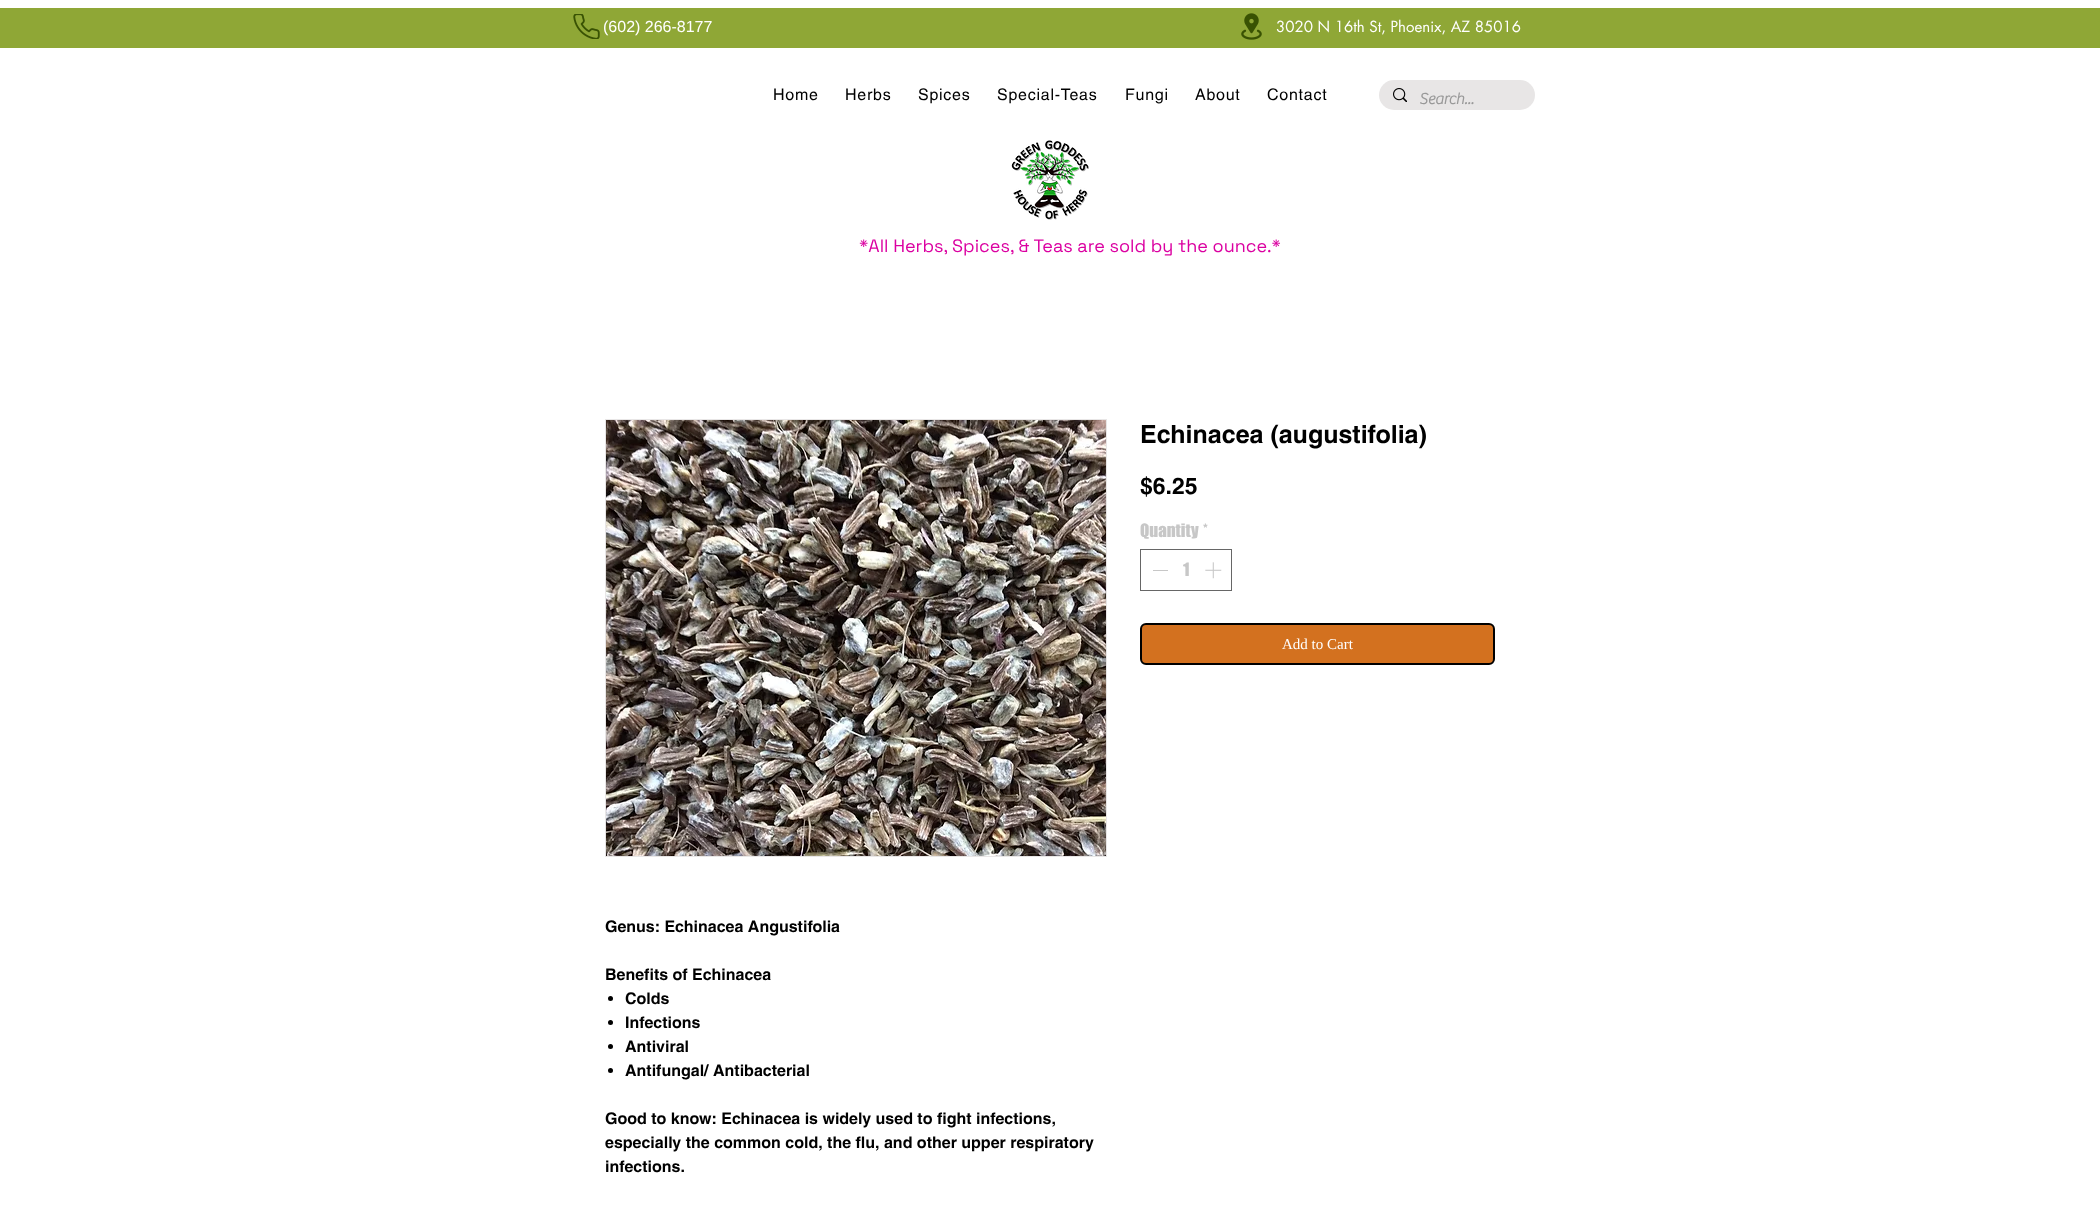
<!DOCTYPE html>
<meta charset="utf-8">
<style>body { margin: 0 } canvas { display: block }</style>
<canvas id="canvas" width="2100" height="1215"></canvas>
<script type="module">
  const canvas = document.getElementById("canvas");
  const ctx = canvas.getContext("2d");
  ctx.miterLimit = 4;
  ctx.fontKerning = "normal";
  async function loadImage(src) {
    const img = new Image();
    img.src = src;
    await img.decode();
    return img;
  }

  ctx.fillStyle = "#ffffff";
  ctx.fillRect(0, 0, 2100, 1215);
  ctx.fillStyle = "#8fa736";
  ctx.fillRect(0, 8, 2100, 40);
  ctx.drawImage(await loadImage("img1.png"), 573, 14, 27, 25);
  ctx.font = "16px Liberation Sans";
  ctx.fillStyle = "#ffffff";
  ctx.fillText("(602) 266-8177", 603, 32);
  ctx.drawImage(await loadImage("img2.png"), 1241, 13, 21, 27);
  ctx.font = "15px futura";
  ctx.fillText("3020 N 16th St, Phoenix, AZ 85016", 1276, 32);
  ctx.letterSpacing = "0.75px";
  ctx.font = "16px helvetica";
  ctx.fillStyle = "#000000";
  ctx.fillText("Home", 773, 100);
  ctx.fillText("Herbs", 845, 100);
  ctx.fillText("Spices", 918, 100);
  ctx.fillText("Special-Teas", 997, 100);
  ctx.fillText("Fungi", 1125, 100);
  ctx.fillText("About", 1195, 100);
  ctx.fillText("Contact", 1267, 100);
  ctx.fillStyle = "#e8e6e6";
  ctx.beginPath();
  ctx.roundRect(1379, 80, 156, 30, 15);
  ctx.fill();
  ctx.drawImage(await loadImage("img3.png"), 1393, 88, 14, 14);
  ctx.letterSpacing = "0px";
  ctx.font = "bold 16px 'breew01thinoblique'";
  ctx.fillStyle = "#999999";
  ctx.fillText("Search...", 1419, 104);
  ctx.drawImage(await loadImage("img4.png"), 1011, 140, 78, 80);
  ctx.font = "18px Space Grotesk";
  ctx.fillStyle = "#db00a1";
  ctx.fillText("*All Herbs, Spices, & Teas are sold by the ounce.*", 859, 252);
  ctx.font = "bold 25px helvetica";
  ctx.fillStyle = "#000000";
  ctx.fillText("Echinacea (augustifolia)", 1140, 443);
  ctx.font = "bold 23px helvetica";
  ctx.fillText("$6.25", 1140, 494);
  ctx.font = "17px 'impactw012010'";
  ctx.fillStyle = "#c7c7c7";
  ctx.fillText("Quantity", 1140, 537);
  ctx.fillText("*", 1203, 537);
  ctx.strokeStyle = "#666666";
  ctx.strokeRect(1140.5, 549.5, 91, 41);
  ctx.fillRect(1153, 570, 15, 1);
  ctx.fillText("1", 1183, 576);
  ctx.drawImage(await loadImage("img5.png"), 1205, 562, 17, 17);
  ctx.fillStyle = "#d3711f";
  ctx.beginPath();
  ctx.roundRect(1141, 624, 353, 40, 5);
  ctx.fill();
  ctx.strokeStyle = "#000000";
  ctx.lineWidth = 2;
  ctx.stroke();
  ctx.font = "15px Liberation Serif";
  ctx.fillStyle = "#ffffff";
  ctx.fillText("Add to Cart", 1282, 649);
  ctx.strokeStyle = "#e8e6e6";
  ctx.lineWidth = 1;
  ctx.strokeRect(605.5, 419.5, 501, 437);
  ctx.drawImage(await loadImage("img6.png"), 606, 420, 500, 436);
  ctx.font = "bold 16px helvetica";
  ctx.fillStyle = "#000000";
  ctx.fillText("Genus: Echinacea Angustifolia", 605, 932);
  ctx.fillText("Benefits of Echinacea", 605, 980);
  ctx.beginPath();
  ctx.arc(610.5, 998.5, 2.5, 0, Math.PI * 2);
  ctx.fill();
  ctx.fillText("Colds", 625, 1004);
  ctx.beginPath();
  ctx.arc(610.5, 1022.5, 2.5, 0, Math.PI * 2);
  ctx.fill();
  ctx.fillText("Infections", 625, 1028);
  ctx.beginPath();
  ctx.arc(610.5, 1046.5, 2.5, 0, Math.PI * 2);
  ctx.fill();
  ctx.fillText("Antiviral", 625, 1052);
  ctx.beginPath();
  ctx.arc(610.5, 1070.5, 2.5, 0, Math.PI * 2);
  ctx.fill();
  ctx.fillText("Antifungal/ Antibacterial", 625, 1076);
  ctx.fillText("Good to know: Echinacea is widely used to fight infections,", 605, 1124);
  ctx.fillText("especially the common cold, the flu, and other upper respiratory", 605, 1148);
  ctx.fillText("infections.", 605, 1172);
</script>
